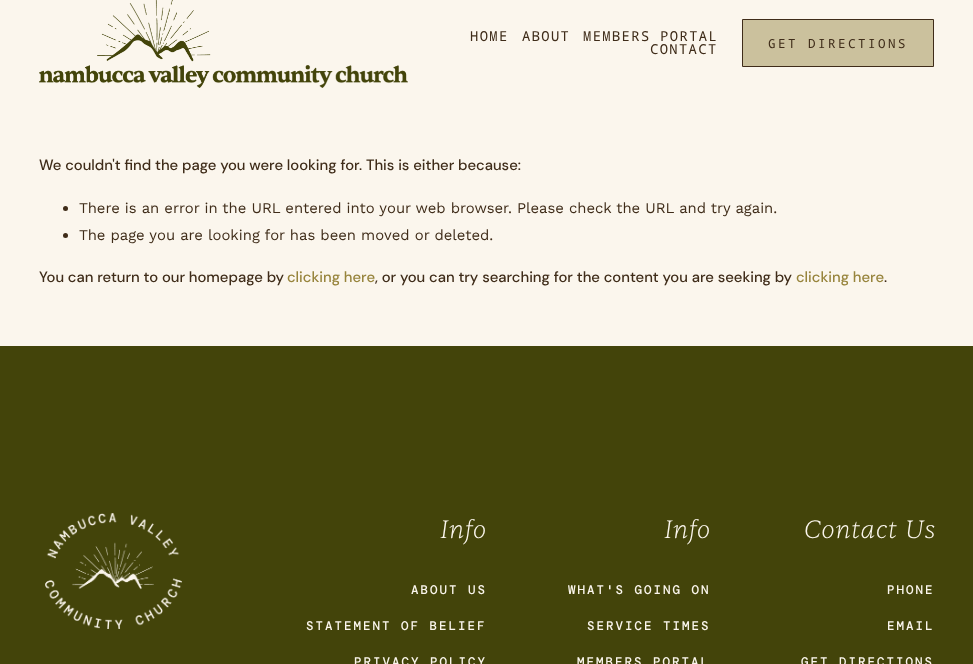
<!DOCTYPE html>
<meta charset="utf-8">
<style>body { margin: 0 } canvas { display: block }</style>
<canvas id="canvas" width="973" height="664"></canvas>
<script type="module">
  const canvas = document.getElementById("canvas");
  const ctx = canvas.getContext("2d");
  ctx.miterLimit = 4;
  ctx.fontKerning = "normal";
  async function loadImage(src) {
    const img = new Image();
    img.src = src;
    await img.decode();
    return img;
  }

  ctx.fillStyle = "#fbf6ed";
  ctx.fillRect(0, 0, 973, 664);
  ctx.drawImage(await loadImage("img1.png"), 39, 0, 369, 88);
  ctx.letterSpacing = "1.4px";
  ctx.font = "13.75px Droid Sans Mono";
  ctx.fillStyle = "#3f2c19";
  ctx.fillText("HOME", 470, 41);
  ctx.fillText("ABOUT", 522, 41);
  ctx.fillText("MEMBERS PORTAL", 583, 41);
  ctx.fillText("CONTACT", 650, 54);
  ctx.fillStyle = "#cbc19d";
  ctx.beginPath();
  ctx.rect(742.5, 19.5, 191, 47);
  ctx.fill();
  ctx.strokeStyle = "#3f2c19";
  ctx.stroke();
  ctx.letterSpacing = "2.5px";
  ctx.font = "12.5px Droid Sans Mono";
  ctx.fillStyle = "#3f2c19";
  ctx.fillText("GET DIRECTIONS", 768, 48);
  ctx.letterSpacing = "0px";
  ctx.font = "500 14.85px DM Sans";
  ctx.fillText("We couldn't find the page you were looking for. This is either because:", 39, 170);
  ctx.beginPath();
  ctx.arc(65.5, 208.5, 2.5, 0, Math.PI * 2);
  ctx.fill();
  ctx.font = "14.85px Work Sans";
  ctx.fillText("There is an error in the URL entered into your web browser. Please check the URL and try again.", 79, 213);
  ctx.beginPath();
  ctx.arc(65.5, 235.5, 2.5, 0, Math.PI * 2);
  ctx.fill();
  ctx.fillText("The page you are looking for has been moved or deleted.", 79, 240);
  ctx.font = "500 14.85px DM Sans";
  ctx.fillText("You can return to our homepage by", 39, 282);
  ctx.fillStyle = "#97843c";
  ctx.fillText("clicking here", 287, 282);
  ctx.fillStyle = "#3f2c19";
  ctx.fillText(", or you can try searching for the content you are seeking by", 375, 282);
  ctx.fillStyle = "#97843c";
  ctx.fillText("clicking here", 796, 282);
  ctx.fillStyle = "#3f2c19";
  ctx.fillText(".", 884, 282);
  ctx.fillStyle = "#43440a";
  ctx.fillRect(0, 346, 973, 318);
  ctx.drawImage(await loadImage("img2.png"), 45, 513, 137, 116);
  ctx.font = "italic 200 25.5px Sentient";
  ctx.fillStyle = "#fbf6ed";
  ctx.fillText("Info", 440, 538);
  ctx.letterSpacing = "2px";
  ctx.font = "500 12.5px DM Mono";
  ctx.fillText("ABOUT US", 411, 594);
  ctx.fillText("STATEMENT OF BELIEF", 306, 630);
  ctx.fillText("PRIVACY POLICY", 354, 666);
  ctx.letterSpacing = "0px";
  ctx.font = "italic 200 25.5px Sentient";
  ctx.fillText("Info", 664, 538);
  ctx.letterSpacing = "2px";
  ctx.font = "500 12.5px DM Mono";
  ctx.fillText("WHAT'S GOING ON", 568, 594);
  ctx.fillText("SERVICE TIMES", 587, 630);
  ctx.fillText("MEMBERS PORTAL", 577, 666);
  ctx.letterSpacing = "0px";
  ctx.font = "italic 200 25.5px Sentient";
  ctx.fillText("Contact Us", 804, 538);
  ctx.letterSpacing = "2px";
  ctx.font = "500 12.5px DM Mono";
  ctx.fillText("PHONE", 887, 594);
  ctx.fillText("EMAIL", 887, 630);
  ctx.fillText("GET DIRECTIONS", 801, 666);
</script>
